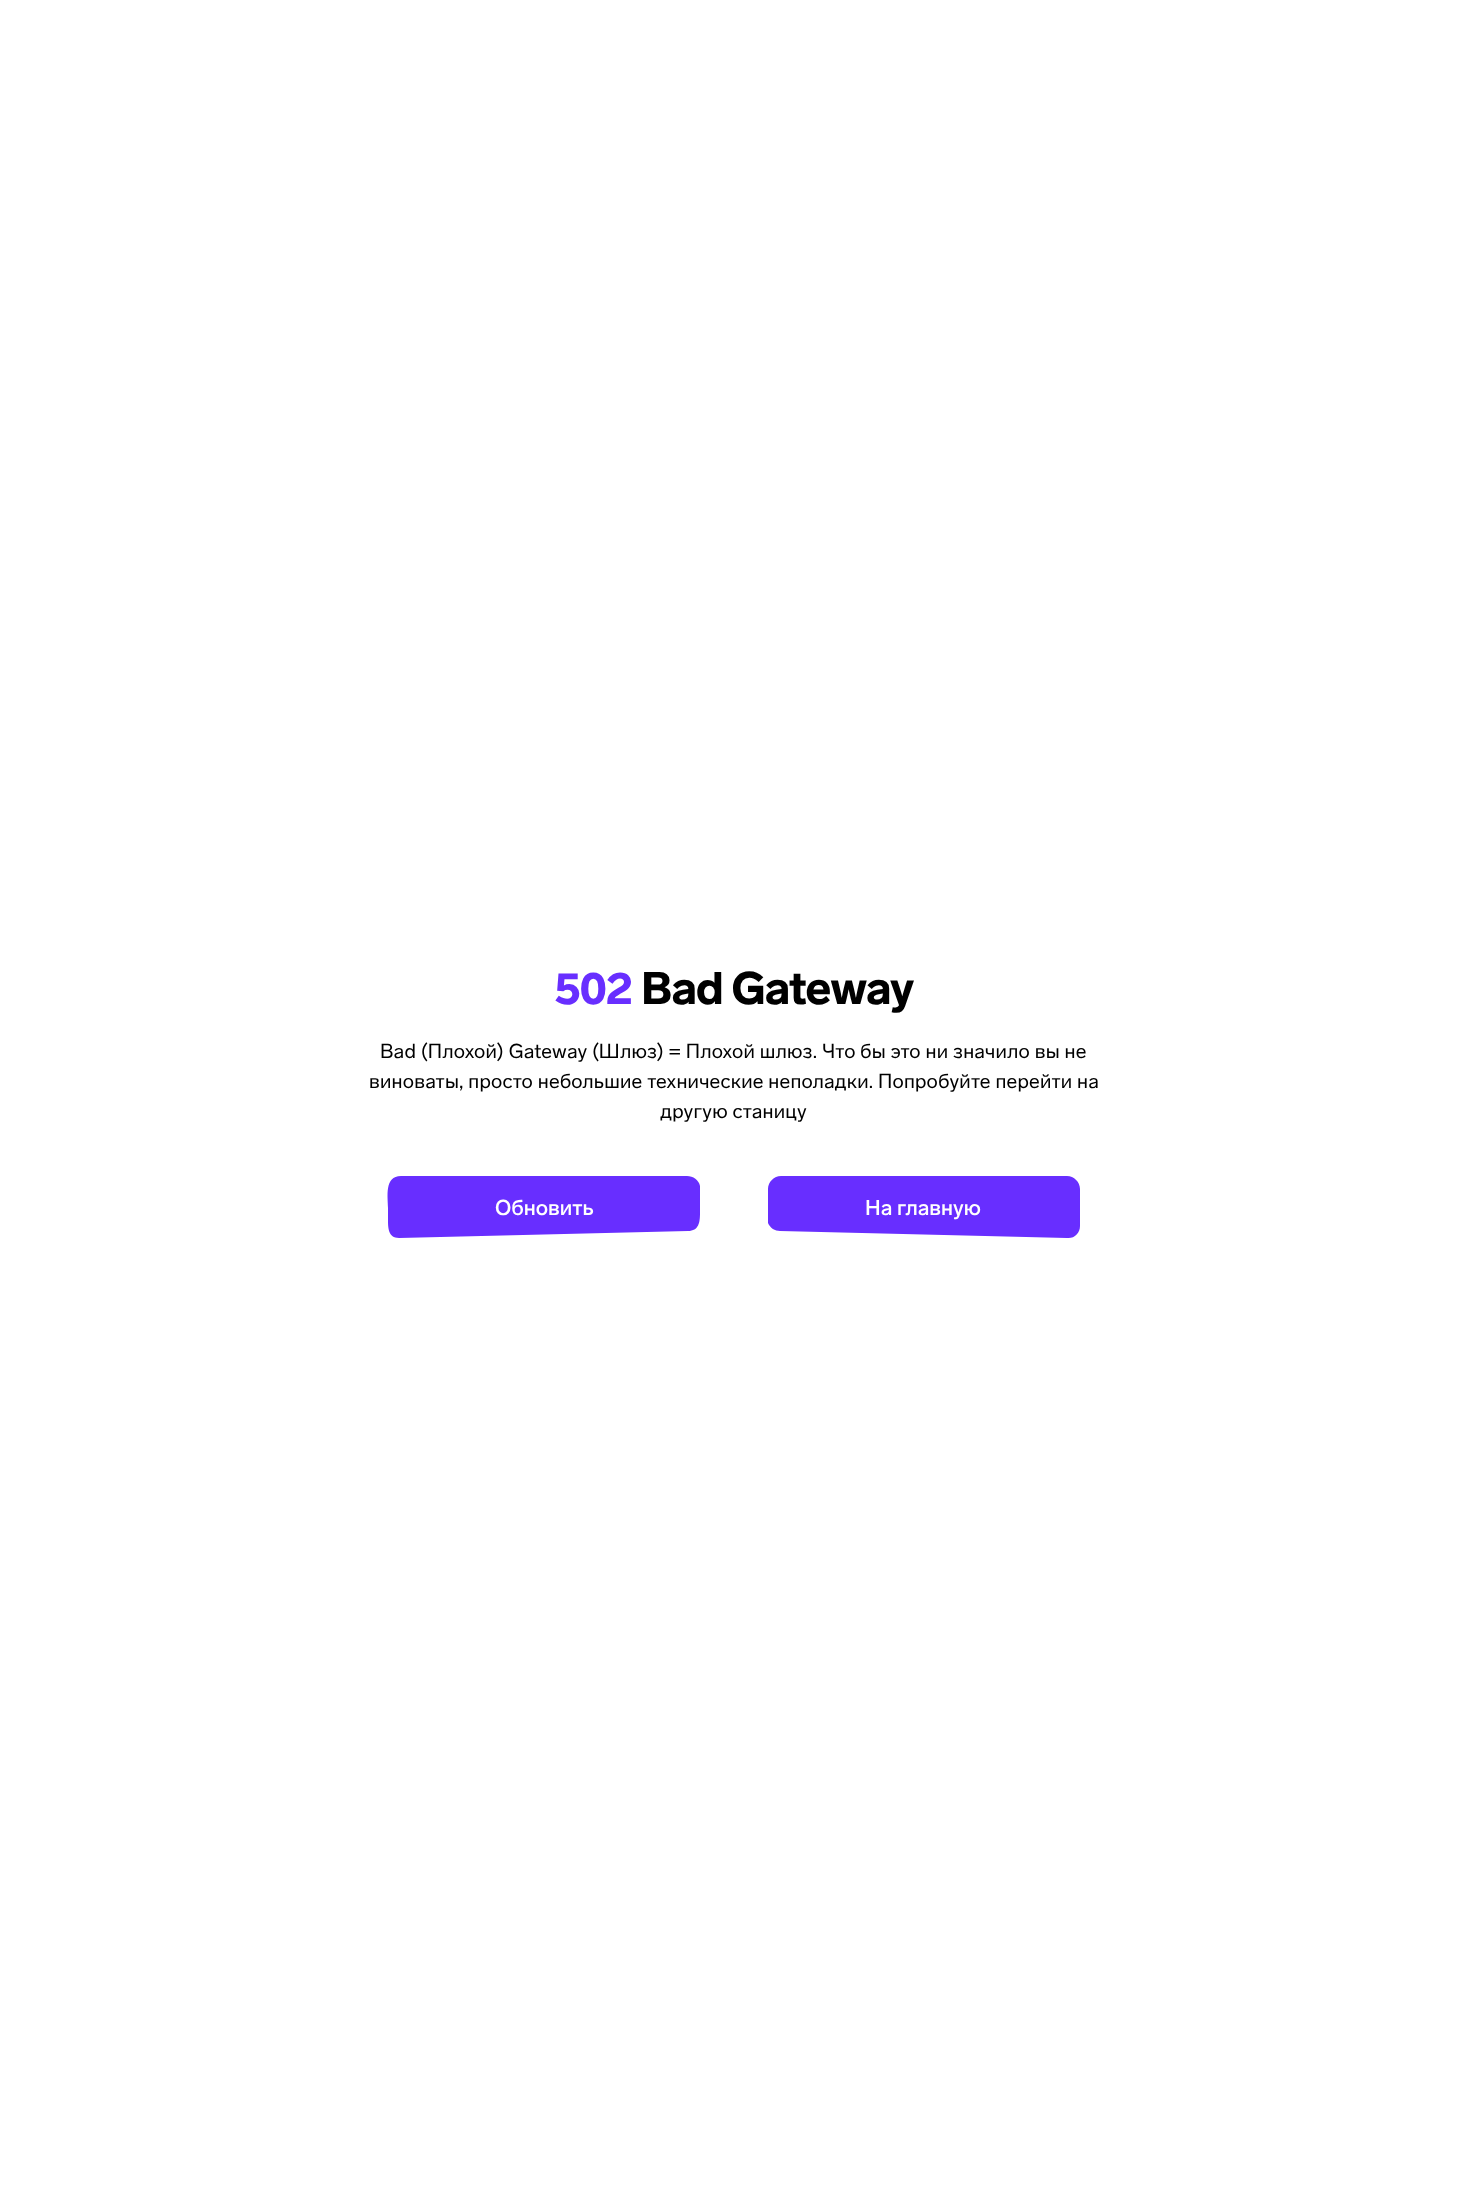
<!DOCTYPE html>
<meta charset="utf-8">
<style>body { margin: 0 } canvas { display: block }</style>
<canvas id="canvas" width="1467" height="2204"></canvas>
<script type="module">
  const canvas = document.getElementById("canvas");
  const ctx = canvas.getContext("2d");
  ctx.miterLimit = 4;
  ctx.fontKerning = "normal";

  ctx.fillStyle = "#ffffff";
  ctx.fillRect(0, 0, 1467, 2204);
  ctx.letterSpacing = "-0.9px";
  ctx.font = "900 45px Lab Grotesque";
  ctx.fillStyle = "#682eff";
  ctx.fillText("502", 555, 1004);
  ctx.fillStyle = "#000000";
  ctx.fillText("Bad Gateway", 641, 1004);
  ctx.letterSpacing = "0.2px";
  ctx.font = "20px Lab Grotesque";
  ctx.fillText("Bad (Плохой) Gateway (Шлюз) = Плохой шлюз. Что бы это ни значило вы не", 380, 1058);
  ctx.fillText("виноваты, просто небольшие технические неполадки. Попробуйте перейти на", 369, 1088);
  ctx.fillText("другую станицу", 660, 1118);
  ctx.fillStyle = "#682eff";
  ctx.beginPath();
  ctx.moveTo(401, 1176);
  ctx.bezierCurveTo(384, 1176, 388, 1197, 388, 1208);
  ctx.lineTo(388, 1220);
  ctx.bezierCurveTo(388, 1227, 388, 1238, 399, 1238);
  ctx.lineTo(688, 1231);
  ctx.bezierCurveTo(699, 1231, 700, 1222, 700, 1213);
  ctx.lineTo(700, 1186);
  ctx.bezierCurveTo(699, 1180, 693, 1176, 687, 1176);
  ctx.closePath();
  ctx.fill();
  ctx.letterSpacing = "0px";
  ctx.font = "500 21.25px Lab Grotesque";
  ctx.fillStyle = "#ffffff";
  ctx.fillText("Обновить", 495, 1215);
  ctx.fillStyle = "#682eff";
  ctx.beginPath();
  ctx.moveTo(781, 1176);
  ctx.lineTo(1067, 1176);
  ctx.bezierCurveTo(1074, 1176, 1080, 1182, 1080, 1189);
  ctx.lineTo(1080, 1226);
  ctx.bezierCurveTo(1080, 1233, 1074, 1239, 1067, 1238);
  ctx.lineTo(780, 1231);
  ctx.bezierCurveTo(775, 1231, 770, 1228, 768, 1223);
  ctx.lineTo(768, 1189);
  ctx.bezierCurveTo(768, 1182, 774, 1176, 781, 1176);
  ctx.closePath();
  ctx.fill();
  ctx.fillStyle = "#ffffff";
  ctx.fillText("На главную", 865, 1215);
</script>
